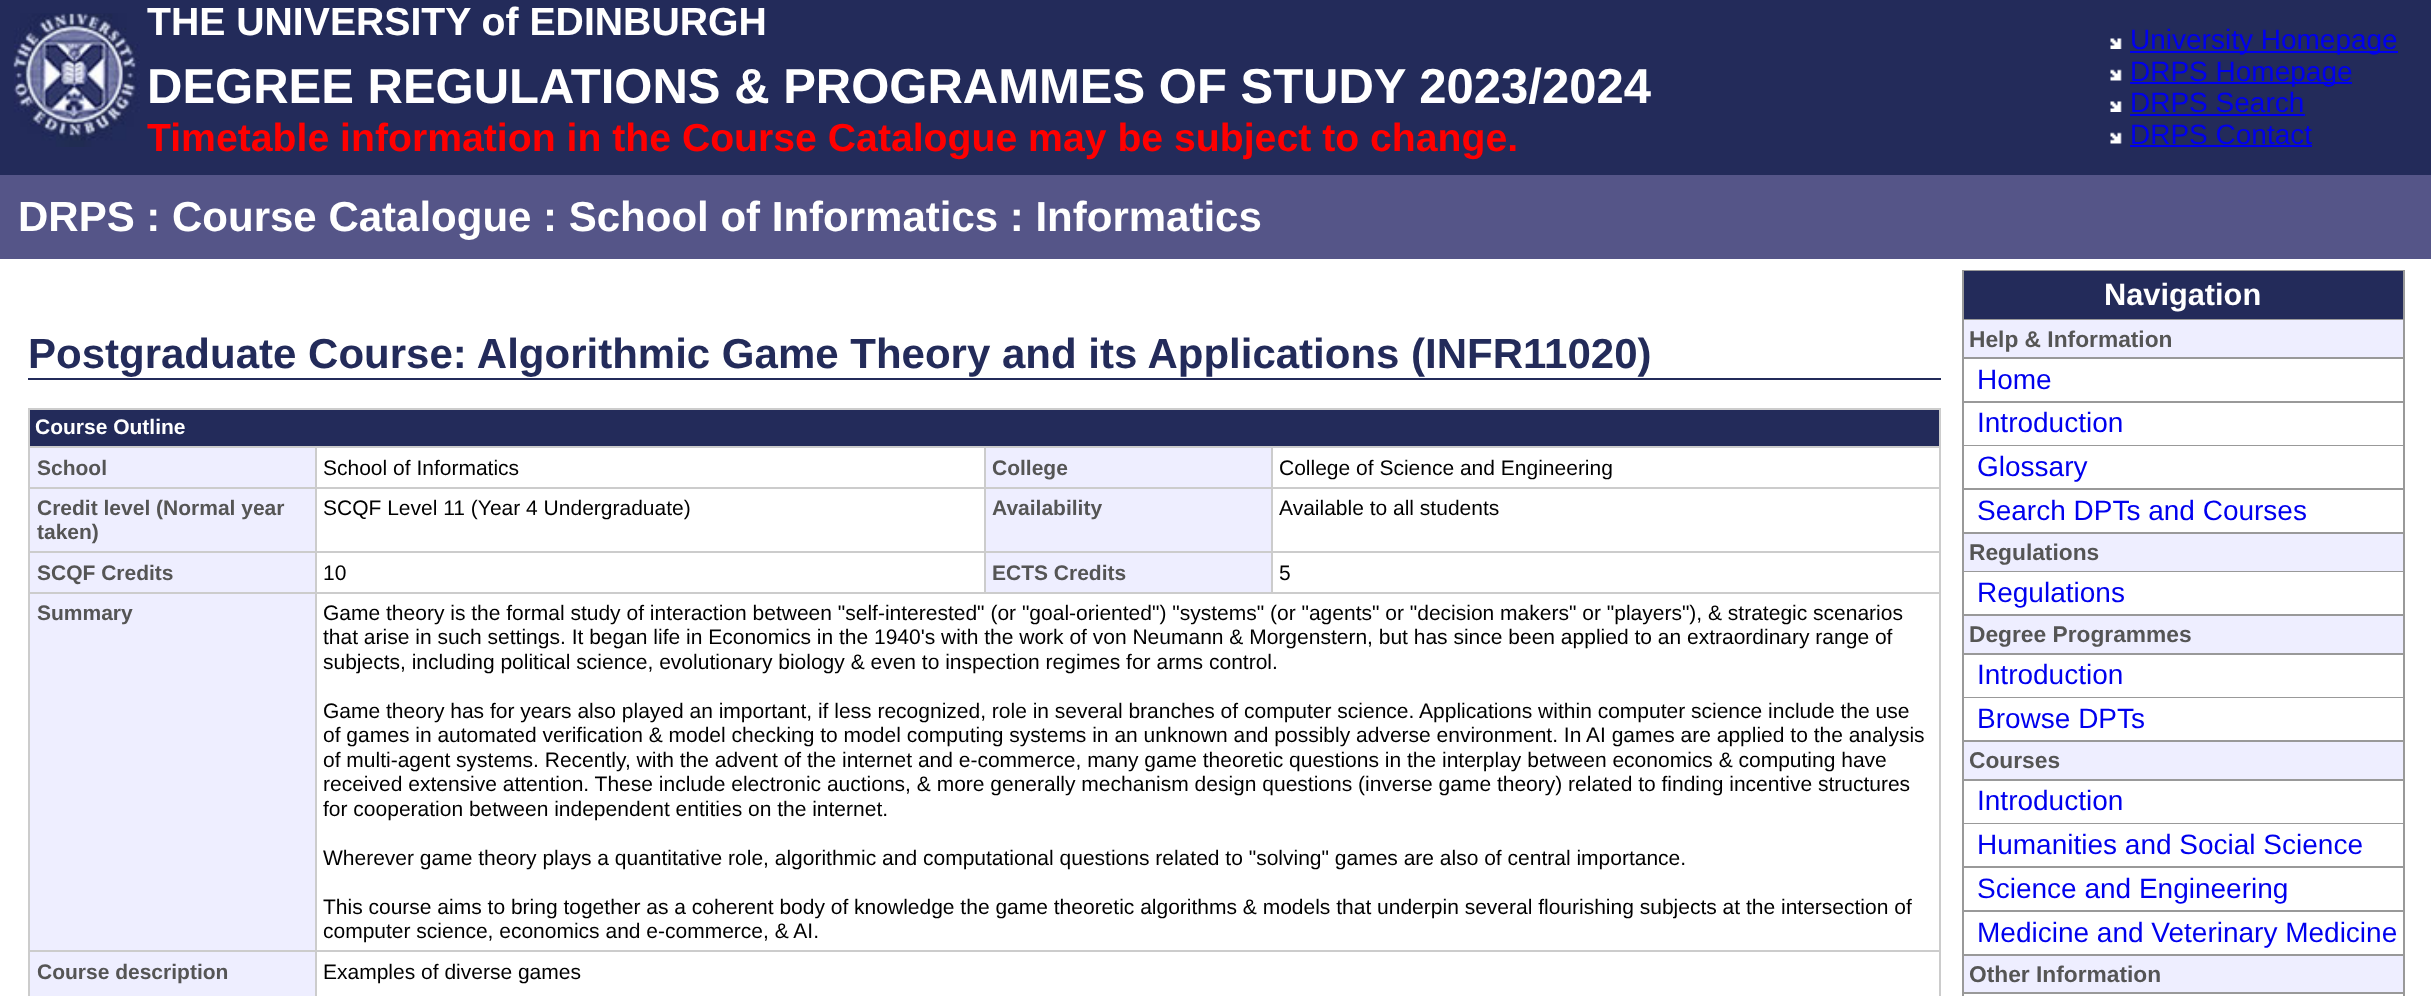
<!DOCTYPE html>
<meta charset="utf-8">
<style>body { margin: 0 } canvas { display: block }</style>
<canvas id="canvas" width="2431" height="996"></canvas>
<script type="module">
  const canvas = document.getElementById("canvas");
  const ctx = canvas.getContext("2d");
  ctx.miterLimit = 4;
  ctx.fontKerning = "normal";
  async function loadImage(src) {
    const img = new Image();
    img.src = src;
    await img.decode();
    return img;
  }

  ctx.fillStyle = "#ffffff";
  ctx.fillRect(0, 0, 2431, 996);
  ctx.fillStyle = "#232b5a";
  ctx.fillRect(0, 0, 2431, 175);
  ctx.drawImage(await loadImage("img1.png"), 13, 13, 127, 134);
  ctx.font = "bold 39.2px Liberation Sans";
  ctx.fillStyle = "#ffffff";
  ctx.fillText("THE UNIVERSITY of EDINBURGH", 147, 35);
  ctx.font = "bold 49px Liberation Sans";
  ctx.fillText("DEGREE REGULATIONS & PROGRAMMES OF STUDY 2023/2024", 147, 103);
  ctx.font = "bold 39.2px Liberation Sans";
  ctx.fillStyle = "#ff0000";
  ctx.fillText("Timetable information in the Course Catalogue may be subject to change.", 147, 151);
  ctx.drawImage(await loadImage("img2.png"), 2110, 38, 12, 11);
  ctx.fillStyle = "#0000ee";
  ctx.fillRect(2130, 51, 268, 2);
  ctx.font = "28px Liberation Sans";
  ctx.fillText("University Homepage", 2130, 49);
  ctx.drawImage(await loadImage("img3.png"), 2110, 69, 12, 12);
  ctx.fillRect(2130, 82, 222, 2);
  ctx.fillText("DRPS Homepage", 2130, 81);
  ctx.drawImage(await loadImage("img2.png"), 2110, 101, 12, 11);
  ctx.fillText("DRPS Search", 2130, 112);
  ctx.fillRect(2130, 114, 175, 2);
  ctx.drawImage(await loadImage("img3.png"), 2110, 132, 12, 12);
  ctx.fillText("DRPS Contact", 2130, 144);
  ctx.fillRect(2130, 145, 182, 2);
  ctx.fillStyle = "#555588";
  ctx.fillRect(0, 175, 2431, 84);
  ctx.font = "bold 42px Liberation Sans";
  ctx.fillStyle = "#ffffff";
  ctx.fillText("DRPS : Course Catalogue : School of Informatics : Informatics", 18, 231);
  ctx.fillStyle = "#232b5a";
  ctx.fillRect(28, 378, 1913, 2);
  ctx.fillText("Postgraduate Course: Algorithmic Game Theory and its Applications (INFR11020)", 28, 368);
  ctx.fillStyle = "#cccccc";
  ctx.fillRect(28, 408, 1913, 2);
  ctx.fillRect(1939, 408, 2, 588);
  ctx.fillRect(28, 408, 2, 588);
  ctx.fillStyle = "#232b5a";
  ctx.fillRect(30, 410, 1909, 36);
  ctx.font = "bold 21px Liberation Sans";
  ctx.fillStyle = "#ffffff";
  ctx.fillText("Course Outline", 35, 434);
  ctx.fillStyle = "#eeeeff";
  ctx.fillRect(30, 448, 285, 39);
  ctx.fillStyle = "#cccccc";
  ctx.fillRect(1271, 446, 670, 2);
  ctx.fillRect(1271, 487, 670, 2);
  ctx.fillRect(1271, 551, 670, 2);
  ctx.fillRect(315, 592, 1626, 2);
  ctx.fillRect(1271, 551, 2, 42);
  ctx.fillRect(984, 551, 288, 2);
  ctx.fillRect(1271, 487, 2, 66);
  ctx.fillRect(984, 487, 288, 2);
  ctx.fillRect(1271, 446, 2, 42);
  ctx.fillRect(984, 446, 288, 2);
  ctx.fillRect(984, 551, 2, 42);
  ctx.fillRect(315, 551, 670, 2);
  ctx.fillRect(984, 487, 2, 66);
  ctx.fillRect(315, 487, 670, 2);
  ctx.fillRect(984, 446, 2, 42);
  ctx.fillRect(315, 446, 670, 2);
  ctx.fillRect(315, 950, 1626, 2);
  ctx.fillRect(315, 950, 2, 46);
  ctx.fillRect(28, 950, 289, 2);
  ctx.fillRect(315, 592, 2, 360);
  ctx.fillRect(28, 592, 289, 2);
  ctx.fillRect(315, 551, 2, 42);
  ctx.fillRect(28, 551, 289, 2);
  ctx.fillRect(315, 487, 2, 66);
  ctx.fillRect(28, 487, 289, 2);
  ctx.fillRect(315, 446, 2, 42);
  ctx.fillRect(28, 446, 289, 2);
  ctx.fillStyle = "#555555";
  ctx.fillText("School", 37, 475);
  ctx.font = "21px Liberation Sans";
  ctx.fillStyle = "#000000";
  ctx.fillText("School of Informatics", 323, 475);
  ctx.fillStyle = "#eeeeff";
  ctx.fillRect(986, 448, 285, 39);
  ctx.font = "bold 21px Liberation Sans";
  ctx.fillStyle = "#555555";
  ctx.fillText("College", 992, 475);
  ctx.font = "21px Liberation Sans";
  ctx.fillStyle = "#000000";
  ctx.fillText("College of Science and Engineering", 1279, 475);
  ctx.fillStyle = "#eeeeff";
  ctx.fillRect(30, 489, 285, 62);
  ctx.font = "bold 21px Liberation Sans";
  ctx.fillStyle = "#555555";
  ctx.fillText("Credit level (Normal year", 37, 515);
  ctx.fillText("taken)", 37, 539);
  ctx.font = "21px Liberation Sans";
  ctx.fillStyle = "#000000";
  ctx.fillText("SCQF Level 11 (Year 4 Undergraduate)", 323, 515);
  ctx.fillStyle = "#eeeeff";
  ctx.fillRect(986, 489, 285, 62);
  ctx.font = "bold 21px Liberation Sans";
  ctx.fillStyle = "#555555";
  ctx.fillText("Availability", 992, 515);
  ctx.font = "21px Liberation Sans";
  ctx.fillStyle = "#000000";
  ctx.fillText("Available to all students", 1279, 515);
  ctx.fillStyle = "#eeeeff";
  ctx.fillRect(30, 553, 285, 39);
  ctx.font = "bold 21px Liberation Sans";
  ctx.fillStyle = "#555555";
  ctx.fillText("SCQF Credits", 37, 580);
  ctx.font = "21px Liberation Sans";
  ctx.fillStyle = "#000000";
  ctx.fillText("10", 323, 580);
  ctx.fillStyle = "#eeeeff";
  ctx.fillRect(986, 553, 285, 39);
  ctx.font = "bold 21px Liberation Sans";
  ctx.fillStyle = "#555555";
  ctx.fillText("ECTS Credits", 992, 580);
  ctx.font = "21px Liberation Sans";
  ctx.fillStyle = "#000000";
  ctx.fillText("5", 1279, 580);
  ctx.fillStyle = "#eeeeff";
  ctx.fillRect(30, 594, 285, 356);
  ctx.font = "bold 21px Liberation Sans";
  ctx.fillStyle = "#555555";
  ctx.fillText("Summary", 37, 620);
  ctx.font = "21px Liberation Sans";
  ctx.fillStyle = "#000000";
  ctx.fillText("Game theory is the formal study of interaction between \"self-interested\" (or \"goal-oriented\") \"systems\" (or \"agents\" or \"decision makers\" or \"players\"), & strategic scenarios", 323, 620);
  ctx.fillText("that arise in such settings. It began life in Economics in the 1940's with the work of von Neumann & Morgenstern, but has since been applied to an extraordinary range of", 323, 644);
  ctx.fillText("subjects, including political science, evolutionary biology & even to inspection regimes for arms control.", 323, 669);
  ctx.fillText("Game theory has for years also played an important, if less recognized, role in several branches of computer science. Applications within computer science include the use", 323, 718);
  ctx.fillText("of games in automated verification & model checking to model computing systems in an unknown and possibly adverse environment. In AI games are applied to the analysis", 323, 742);
  ctx.fillText("of multi-agent systems. Recently, with the advent of the internet and e-commerce, many game theoretic questions in the interplay between economics & computing have", 323, 767);
  ctx.fillText("received extensive attention. These include electronic auctions, & more generally mechanism design questions (inverse game theory) related to finding incentive structures", 323, 791);
  ctx.fillText("for cooperation between independent entities on the internet.", 323, 816);
  ctx.fillText("Wherever game theory plays a quantitative role, algorithmic and computational questions related to \"solving\" games are also of central importance.", 323, 865);
  ctx.fillText("This course aims to bring together as a coherent body of knowledge the game theoretic algorithms & models that underpin several flourishing subjects at the intersection of", 323, 914);
  ctx.fillText("computer science, economics and e-commerce, & AI.", 323, 938);
  ctx.fillStyle = "#eeeeff";
  ctx.fillRect(30, 952, 285, 44);
  ctx.font = "bold 21px Liberation Sans";
  ctx.fillStyle = "#555555";
  ctx.fillText("Course description", 37, 979);
  ctx.font = "21px Liberation Sans";
  ctx.fillStyle = "#000000";
  ctx.fillText("Examples of diverse games", 323, 979);
  ctx.fillStyle = "#999999";
  ctx.fillRect(1962, 270, 443, 726);
  ctx.fillStyle = "#232b5a";
  ctx.fillRect(1964, 271, 439, 48);
  ctx.font = "bold 30.75px Liberation Sans";
  ctx.fillStyle = "#ffffff";
  ctx.fillText("Navigation", 2104, 305);
  ctx.fillStyle = "#eeeeff";
  ctx.fillRect(1964, 320, 439, 37);
  ctx.font = "bold 22.75px Liberation Sans";
  ctx.fillStyle = "#555555";
  ctx.fillText("Help & Information", 1969, 347);
  ctx.fillStyle = "#ffffff";
  ctx.fillRect(1964, 359, 439, 42);
  ctx.font = "28px Liberation Sans";
  ctx.fillStyle = "#0000ee";
  ctx.fillText("Home", 1977, 389);
  ctx.fillStyle = "#ffffff";
  ctx.fillRect(1964, 403, 439, 42);
  ctx.fillStyle = "#0000ee";
  ctx.fillText("Introduction", 1977, 432);
  ctx.fillStyle = "#ffffff";
  ctx.fillRect(1964, 446, 439, 42);
  ctx.fillStyle = "#0000ee";
  ctx.fillText("Glossary", 1977, 476);
  ctx.fillStyle = "#ffffff";
  ctx.fillRect(1964, 490, 439, 42);
  ctx.fillStyle = "#0000ee";
  ctx.fillText("Search DPTs and Courses", 1977, 520);
  ctx.fillStyle = "#eeeeff";
  ctx.fillRect(1964, 534, 439, 37);
  ctx.font = "bold 22.75px Liberation Sans";
  ctx.fillStyle = "#555555";
  ctx.fillText("Regulations", 1969, 560);
  ctx.fillStyle = "#ffffff";
  ctx.fillRect(1964, 572, 439, 42);
  ctx.font = "28px Liberation Sans";
  ctx.fillStyle = "#0000ee";
  ctx.fillText("Regulations", 1977, 602);
  ctx.fillStyle = "#eeeeff";
  ctx.fillRect(1964, 616, 439, 37);
  ctx.font = "bold 22.75px Liberation Sans";
  ctx.fillStyle = "#555555";
  ctx.fillText("Degree Programmes", 1969, 642);
  ctx.fillStyle = "#ffffff";
  ctx.fillRect(1964, 655, 439, 42);
  ctx.font = "28px Liberation Sans";
  ctx.fillStyle = "#0000ee";
  ctx.fillText("Introduction", 1977, 684);
  ctx.fillStyle = "#ffffff";
  ctx.fillRect(1964, 698, 439, 42);
  ctx.fillStyle = "#0000ee";
  ctx.fillText("Browse DPTs", 1977, 728);
  ctx.fillStyle = "#eeeeff";
  ctx.fillRect(1964, 742, 439, 37);
  ctx.font = "bold 22.75px Liberation Sans";
  ctx.fillStyle = "#555555";
  ctx.fillText("Courses", 1969, 768);
  ctx.fillStyle = "#ffffff";
  ctx.fillRect(1964, 781, 439, 42);
  ctx.font = "28px Liberation Sans";
  ctx.fillStyle = "#0000ee";
  ctx.fillText("Introduction", 1977, 810);
  ctx.fillStyle = "#ffffff";
  ctx.fillRect(1964, 824, 439, 42);
  ctx.fillStyle = "#0000ee";
  ctx.fillText("Humanities and Social Science", 1977, 854);
  ctx.fillStyle = "#ffffff";
  ctx.fillRect(1964, 868, 439, 42);
  ctx.fillStyle = "#0000ee";
  ctx.fillText("Science and Engineering", 1977, 898);
  ctx.fillStyle = "#ffffff";
  ctx.fillRect(1964, 912, 439, 42);
  ctx.fillStyle = "#0000ee";
  ctx.fillText("Medicine and Veterinary Medicine", 1977, 942);
  ctx.fillStyle = "#eeeeff";
  ctx.fillRect(1964, 956, 439, 36);
  ctx.font = "bold 22.75px Liberation Sans";
  ctx.fillStyle = "#555555";
  ctx.fillText("Other Information", 1969, 982);
  ctx.fillStyle = "#ffffff";
  ctx.fillRect(1964, 994, 439, 2);
</script>
